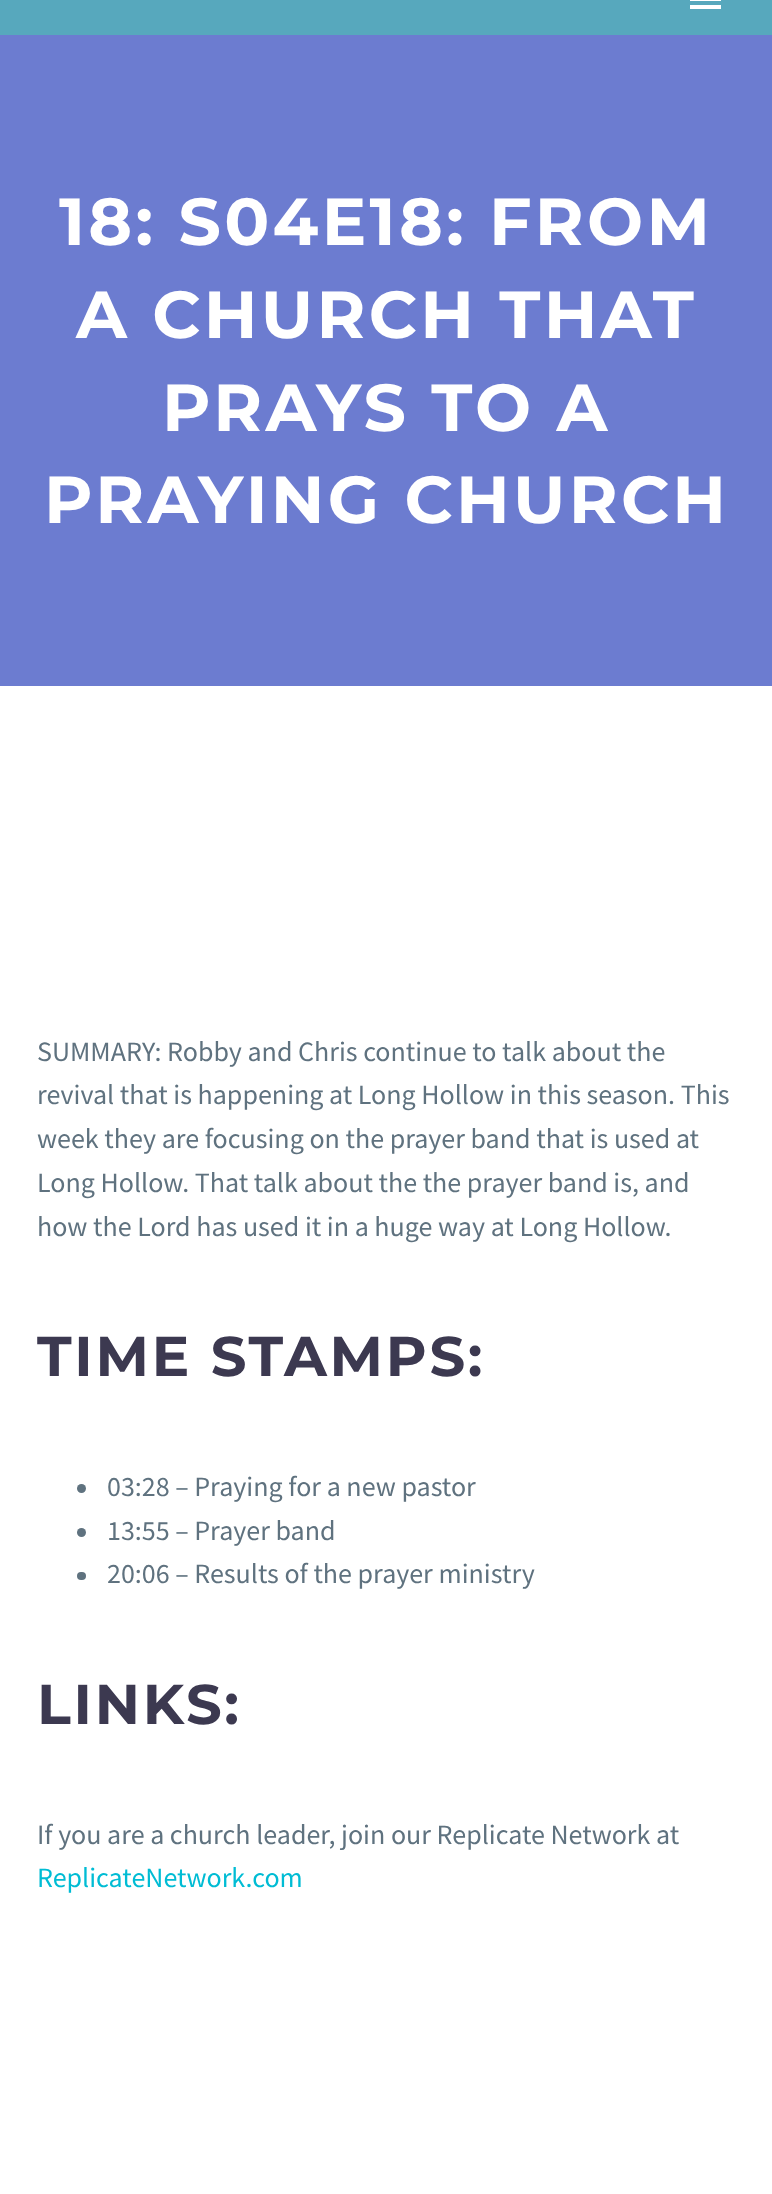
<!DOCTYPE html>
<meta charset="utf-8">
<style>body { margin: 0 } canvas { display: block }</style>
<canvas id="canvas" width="772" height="2194"></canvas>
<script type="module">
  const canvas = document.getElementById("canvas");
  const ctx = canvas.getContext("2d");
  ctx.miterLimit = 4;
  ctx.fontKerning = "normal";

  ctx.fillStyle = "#57a8bd";
  ctx.fillRect(0, 0, 772, 2194);
  ctx.fillStyle = "#ffffff";
  ctx.fillRect(690, 0, 31, 1);
  ctx.fillRect(690, 5, 31, 4);
  ctx.fillStyle = "#6c7cd0";
  ctx.fillRect(0, 35, 772, 651);
  ctx.letterSpacing = "3.3px";
  ctx.font = "bold 66.5px Montserrat";
  ctx.fillStyle = "#ffffff";
  ctx.fillText("18: S04E18: FROM", 59, 245);
  ctx.fillText("A CHURCH THAT", 76, 338);
  ctx.fillText("PRAYS TO A", 162, 431);
  ctx.fillText("PRAYING CHURCH", 44, 523);
  ctx.fillRect(0, 686, 772, 1508);
  ctx.letterSpacing = "0px";
  ctx.font = "28px Source Sans Pro";
  ctx.fillStyle = "#5f727f";
  ctx.fillText("SUMMARY: Robby and Chris continue to talk about the", 37, 1061);
  ctx.fillText("revival that is happening at Long Hollow in this season. This", 37, 1104);
  ctx.fillText("week they are focusing on the prayer band that is used at", 37, 1148);
  ctx.fillText("Long Hollow. That talk about the the prayer band is, and", 37, 1192);
  ctx.fillText("how the Lord has used it in a huge way at Long Hollow.", 37, 1236);
  ctx.letterSpacing = "2.75px";
  ctx.font = "bold 56px Montserrat";
  ctx.fillStyle = "#3c3950";
  ctx.fillText("TIME STAMPS:", 37, 1376);
  ctx.fillStyle = "#5f727f";
  ctx.beginPath();
  ctx.arc(81.5, 1488.5, 4.5, 0, Math.PI * 2);
  ctx.fill();
  ctx.letterSpacing = "0px";
  ctx.font = "28px Source Sans Pro";
  ctx.fillText("03:28 – Praying for a new pastor", 107, 1496);
  ctx.beginPath();
  ctx.arc(81.5, 1532.5, 4.5, 0, Math.PI * 2);
  ctx.fill();
  ctx.fillText("13:55 – Prayer band", 107, 1540);
  ctx.beginPath();
  ctx.roundRect(77, 1572, 9, 8, 4);
  ctx.fill();
  ctx.fillText("20:06 – Results of the prayer ministry", 107, 1583);
  ctx.letterSpacing = "2.75px";
  ctx.font = "bold 56px Montserrat";
  ctx.fillStyle = "#3c3950";
  ctx.fillText("LINKS:", 37, 1724);
  ctx.letterSpacing = "0px";
  ctx.font = "28px Source Sans Pro";
  ctx.fillStyle = "#5f727f";
  ctx.fillText("If you are a church leader, join our Replicate Network at", 37, 1844);
  ctx.fillStyle = "#00bcd4";
  ctx.fillText("ReplicateNetwork.com", 37, 1887);
</script>
